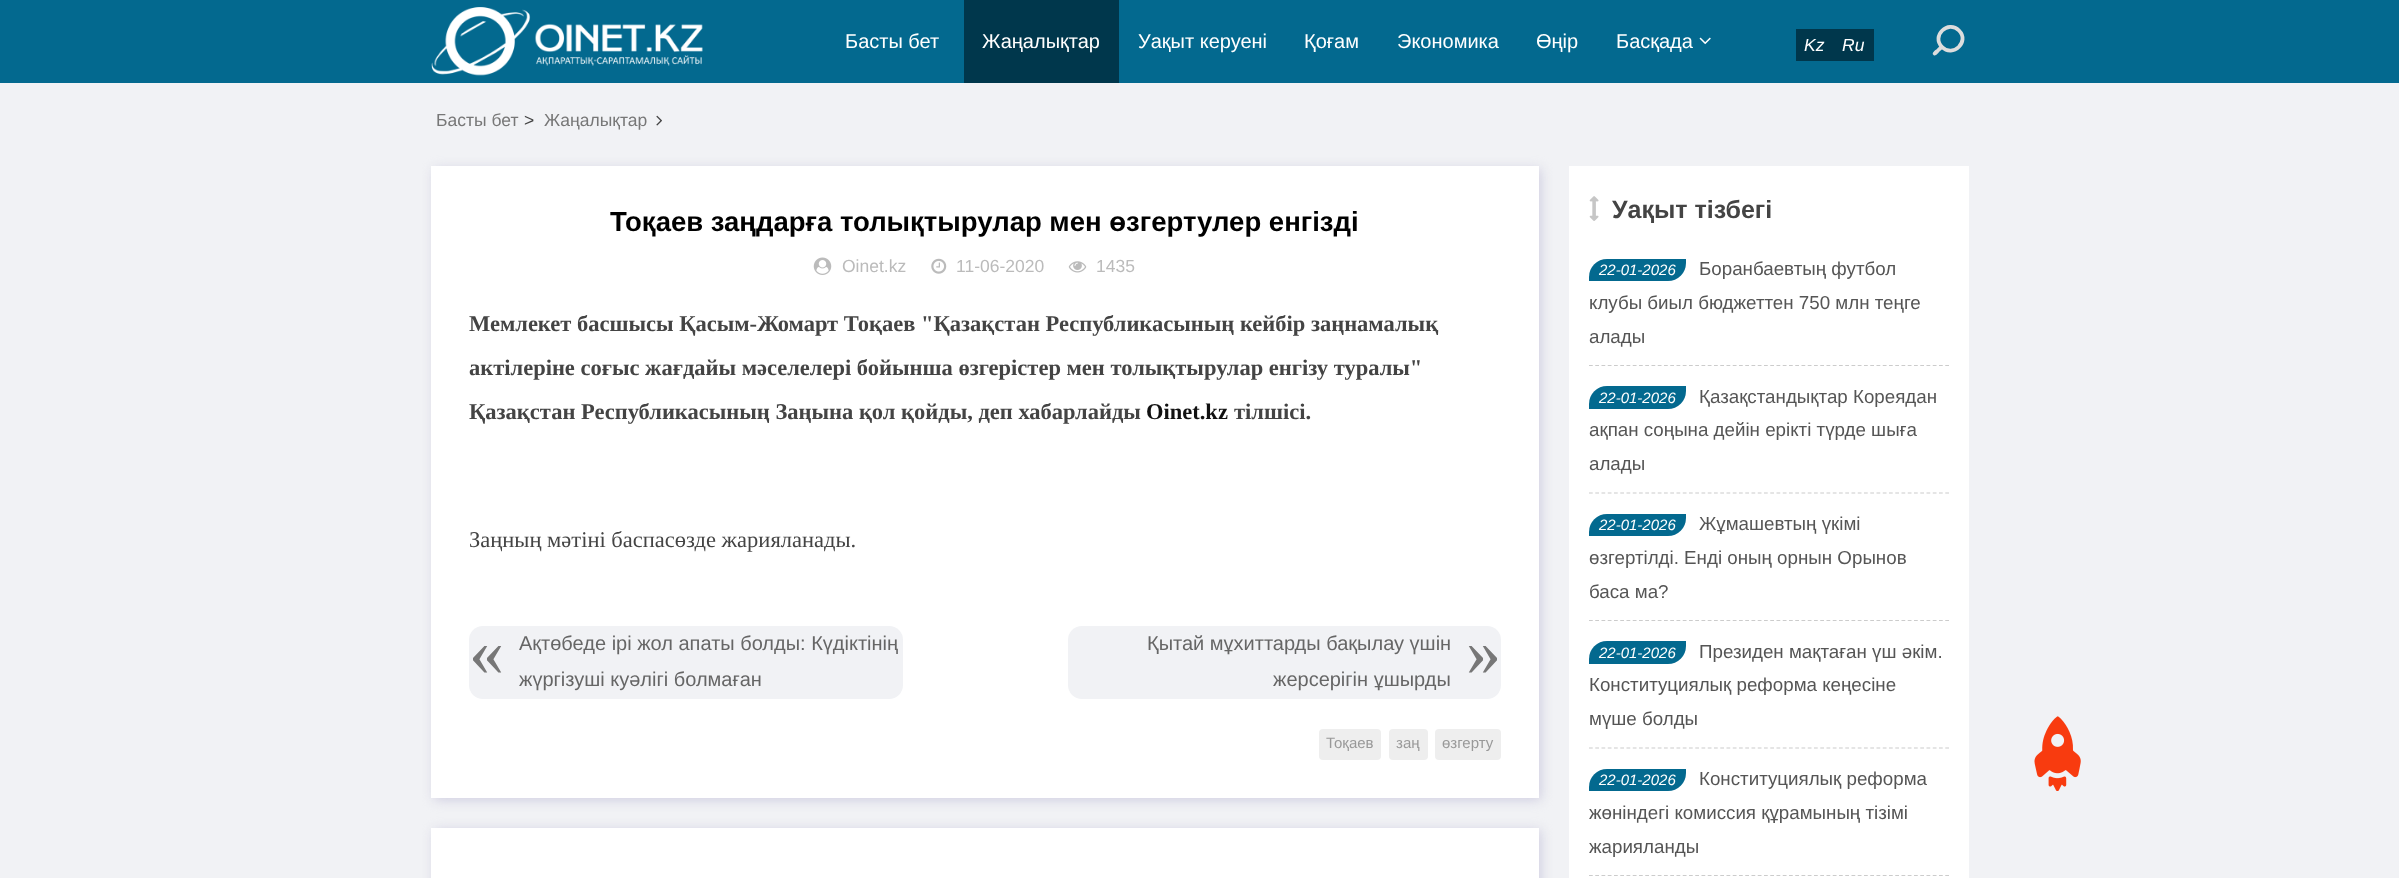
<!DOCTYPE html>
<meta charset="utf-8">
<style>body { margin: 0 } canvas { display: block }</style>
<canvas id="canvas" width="2399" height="878"></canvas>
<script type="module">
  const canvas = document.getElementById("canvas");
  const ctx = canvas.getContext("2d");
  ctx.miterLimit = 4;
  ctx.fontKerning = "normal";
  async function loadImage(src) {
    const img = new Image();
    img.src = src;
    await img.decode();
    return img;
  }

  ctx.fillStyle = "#f1f2f5";
  ctx.fillRect(0, 0, 2399, 878);
  ctx.fillStyle = "#03698f";
  ctx.fillRect(0, 0, 2399, 83);
  ctx.drawImage(await loadImage("img1.png"), 431, 7, 272, 69);
  ctx.font = "20px Liberation Sans";
  ctx.fillStyle = "#ffffff";
  ctx.fillText("Басты бет", 845, 48);
  ctx.fillStyle = "#00374c";
  ctx.fillRect(964, 0, 155, 83);
  ctx.fillStyle = "#ffffff";
  ctx.fillText("Жаңалықтар", 982, 48);
  ctx.fillText("Уақыт керуені", 1138, 48);
  ctx.fillText("Қоғам", 1304, 48);
  ctx.fillText("Экономика", 1397, 48);
  ctx.fillText("Өңір", 1536, 48);
  ctx.fillText("Басқада", 1616, 48);
  ctx.drawImage(await loadImage("img2.png"), 1699, 37, 12, 8);
  ctx.fillStyle = "#00374c";
  ctx.fillRect(1796, 29, 78, 32);
  ctx.font = "italic 17.5px Liberation Sans";
  ctx.fillStyle = "#ffffff";
  ctx.fillText("Kz", 1804, 51);
  ctx.fillText("Ru", 1842, 51);
  ctx.fillStyle = "#dddddd";
  ctx.beginPath();
  ctx.moveTo(1943, 45.5);
  ctx.bezierCurveTo(1945, 47.5, 1940.5, 50.5, 1939.5, 51.5);
  ctx.bezierCurveTo(1938.5, 52.5, 1935.5, 57, 1933.5, 55);
  ctx.bezierCurveTo(1931, 53, 1935.5, 50, 1937, 49);
  ctx.bezierCurveTo(1938, 48, 1941, 43.5, 1943, 45.5);
  ctx.closePath();
  ctx.fill();
  ctx.beginPath();
  ctx.moveTo(1959, 30.5);
  ctx.bezierCurveTo(1970, 41.5, 1953, 58, 1942, 47);
  ctx.bezierCurveTo(1931, 36, 1948, 19.5, 1959, 30.5);
  ctx.closePath();
  ctx.strokeStyle = "#dddddd";
  ctx.lineWidth = 3.8;
  ctx.stroke();
  ctx.font = "17.5px Liberation Sans";
  ctx.fillStyle = "#777777";
  ctx.fillText("Басты бет", 436, 126);
  ctx.fillStyle = "#444444";
  ctx.fillText(">", 524, 126);
  ctx.fillStyle = "#777777";
  ctx.fillText("Жаңалықтар", 544, 126);
  ctx.drawImage(await loadImage("img3.png"), 656, 115, 6, 11);
  ctx.fillStyle = "#cfcde0";
  ctx.filter = "blur(6px)";
  ctx.beginPath();
  ctx.rect(434, 169, 1107, 631);
  ctx.fill();
  ctx.filter = "none";
  ctx.fillStyle = "#ffffff";
  ctx.fillRect(431, 166, 1108, 632);
  ctx.font = "bold 27.5px Liberation Sans";
  ctx.fillStyle = "#000000";
  ctx.fillText("Тоқаев заңдарға толықтырулар мен өзгертулер енгізді", 610, 231);
  ctx.drawImage(await loadImage("img4.png"), 813, 257, 19, 18);
  ctx.font = "17.5px Liberation Sans";
  ctx.fillStyle = "#bbbbbb";
  ctx.fillText("Oinet.kz", 842, 272);
  ctx.drawImage(await loadImage("img5.png"), 931, 258, 16, 16);
  ctx.fillText("11-06-2020", 956, 272);
  ctx.drawImage(await loadImage("img6.png"), 1068, 261, 19, 12);
  ctx.fillText("1435", 1096, 272);
  ctx.font = "bold 22.5px Liberation Serif";
  ctx.fillStyle = "#444444";
  ctx.fillText("Мемлекет басшысы Қасым-Жомарт Тоқаев \"Қазақстан Республикасының кейбір заңнамалық", 469, 331);
  ctx.fillText("актілеріне соғыс жағдайы мәселелері бойынша өзгерістер мен толықтырулар енгізу туралы\"", 469, 375);
  ctx.fillText("Қазақстан Республикасының Заңына қол қойды, деп хабарлайды", 469, 419);
  ctx.fillStyle = "#111111";
  ctx.fillText("Oinet.kz", 1146, 419);
  ctx.fillStyle = "#444444";
  ctx.fillText("тілшісі.", 1234, 419);
  ctx.font = "22.5px Liberation Serif";
  ctx.fillText("Заңның мәтіні баспасөзде жарияланады.", 469, 547);
  ctx.fillStyle = "#f1f2f5";
  ctx.beginPath();
  ctx.roundRect(469, 626, 434, 73, 14);
  ctx.fill();
  ctx.font = "70px Liberation Serif";
  ctx.fillStyle = "#777777";
  ctx.fillText("«", 469, 675);
  ctx.font = "20px Liberation Sans";
  ctx.fillStyle = "#666666";
  ctx.fillText("Ақтөбеде ірі жол апаты болды: Күдіктінің", 519, 650);
  ctx.fillText("жүргізуші куәлігі болмаған", 519, 686);
  ctx.fillStyle = "#f1f2f5";
  ctx.beginPath();
  ctx.roundRect(1068, 626, 433, 73, 14);
  ctx.fill();
  ctx.fillStyle = "#666666";
  ctx.fillText("Қытай мұхиттарды бақылау үшін", 1147, 650);
  ctx.font = "70px Liberation Serif";
  ctx.fillStyle = "#777777";
  ctx.fillText("»", 1466, 675);
  ctx.font = "20px Liberation Sans";
  ctx.fillStyle = "#666666";
  ctx.fillText("жерсерігін ұшырды", 1273, 686);
  ctx.fillStyle = "#eeeeee";
  ctx.beginPath();
  ctx.roundRect(1319, 729, 62, 31, 4);
  ctx.fill();
  ctx.font = "15px Liberation Sans";
  ctx.fillStyle = "#999999";
  ctx.fillText("Тоқаев", 1326, 748);
  ctx.fillStyle = "#eeeeee";
  ctx.beginPath();
  ctx.roundRect(1389, 729, 39, 31, 4);
  ctx.fill();
  ctx.fillStyle = "#999999";
  ctx.fillText("заң", 1396, 748);
  ctx.fillStyle = "#eeeeee";
  ctx.beginPath();
  ctx.roundRect(1435, 729, 66, 31, 4);
  ctx.fill();
  ctx.fillStyle = "#999999";
  ctx.fillText("өзгерту", 1442, 748);
  ctx.fillStyle = "#cfcde0";
  ctx.filter = "blur(6px)";
  ctx.beginPath();
  ctx.rect(434, 830, 1107, 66);
  ctx.fill();
  ctx.filter = "none";
  ctx.fillStyle = "#ffffff";
  ctx.fillRect(431, 828, 1108, 50);
  ctx.fillRect(1569, 166, 400, 712);
  ctx.drawImage(await loadImage("img7.png"), 1589, 196, 10, 25);
  ctx.font = "bold 25px Liberation Sans";
  ctx.fillStyle = "#444444";
  ctx.fillText("Уақыт тізбегі", 1612, 218);
  ctx.beginPath();
  ctx.moveTo(1589, 365.5);
  ctx.lineTo(1949, 365.5);
  ctx.strokeStyle = "#cccccc";
  ctx.lineWidth = 1.2;
  ctx.setLineDash([3.75, 2.5]);
  ctx.stroke();
  ctx.font = "18.75px Liberation Sans";
  ctx.fillStyle = "#555555";
  ctx.fillText("Боранбаевтың футбол", 1699, 275);
  ctx.fillText("клубы биыл бюджеттен 750 млн теңге", 1589, 309);
  ctx.fillText("алады", 1589, 343);
  ctx.fillStyle = "#03698f";
  ctx.beginPath();
  ctx.roundRect(1589, 259, 97, 22, [18, 0, 18, 0]);
  ctx.fill();
  ctx.font = "italic 15px Liberation Sans";
  ctx.fillStyle = "#ffffff";
  ctx.fillText("22-01-2026", 1599, 275);
  ctx.beginPath();
  ctx.moveTo(1589, 493);
  ctx.lineTo(1949, 493);
  ctx.stroke();
  ctx.font = "18.75px Liberation Sans";
  ctx.fillStyle = "#555555";
  ctx.fillText("Қазақстандықтар Кореядан", 1699, 403);
  ctx.fillText("ақпан соңына дейін ерікті түрде шыға", 1589, 436);
  ctx.fillText("алады", 1589, 470);
  ctx.fillStyle = "#03698f";
  ctx.beginPath();
  ctx.roundRect(1589, 386, 97, 23, [18, 0, 18, 0]);
  ctx.fill();
  ctx.font = "italic 15px Liberation Sans";
  ctx.fillStyle = "#ffffff";
  ctx.fillText("22-01-2026", 1599, 403);
  ctx.beginPath();
  ctx.moveTo(1589, 620.5);
  ctx.lineTo(1949, 620.5);
  ctx.stroke();
  ctx.font = "18.75px Liberation Sans";
  ctx.fillStyle = "#555555";
  ctx.fillText("Жұмашевтың үкімі", 1699, 530);
  ctx.fillText("өзгертілді. Енді оның орнын Орынов", 1589, 564);
  ctx.fillText("баса ма?", 1589, 598);
  ctx.fillStyle = "#03698f";
  ctx.beginPath();
  ctx.roundRect(1589, 514, 97, 22, [18, 0, 18, 0]);
  ctx.fill();
  ctx.font = "italic 15px Liberation Sans";
  ctx.fillStyle = "#ffffff";
  ctx.fillText("22-01-2026", 1599, 530);
  ctx.beginPath();
  ctx.moveTo(1589, 748);
  ctx.lineTo(1949, 748);
  ctx.stroke();
  ctx.font = "18.75px Liberation Sans";
  ctx.fillStyle = "#555555";
  ctx.fillText("Президен мақтаған үш әкім.", 1699, 658);
  ctx.fillText("Конституциялық реформа кеңесіне", 1589, 691);
  ctx.fillText("мүше болды", 1589, 725);
  ctx.fillStyle = "#03698f";
  ctx.beginPath();
  ctx.roundRect(1589, 641, 97, 23, [18, 0, 18, 0]);
  ctx.fill();
  ctx.font = "italic 15px Liberation Sans";
  ctx.fillStyle = "#ffffff";
  ctx.fillText("22-01-2026", 1599, 658);
  ctx.beginPath();
  ctx.moveTo(1589, 875.5);
  ctx.lineTo(1949, 875.5);
  ctx.stroke();
  ctx.font = "18.75px Liberation Sans";
  ctx.fillStyle = "#555555";
  ctx.fillText("Конституциялық реформа", 1699, 785);
  ctx.fillText("жөніндегі комиссия құрамының тізімі", 1589, 819);
  ctx.fillText("жарияланды", 1589, 853);
  ctx.fillStyle = "#03698f";
  ctx.beginPath();
  ctx.roundRect(1589, 769, 97, 22, [18, 0, 18, 0]);
  ctx.fill();
  ctx.font = "italic 15px Liberation Sans";
  ctx.fillStyle = "#ffffff";
  ctx.fillText("22-01-2026", 1599, 785);
  ctx.drawImage(await loadImage("img8.png"), 2034, 716, 47, 75);
</script>
